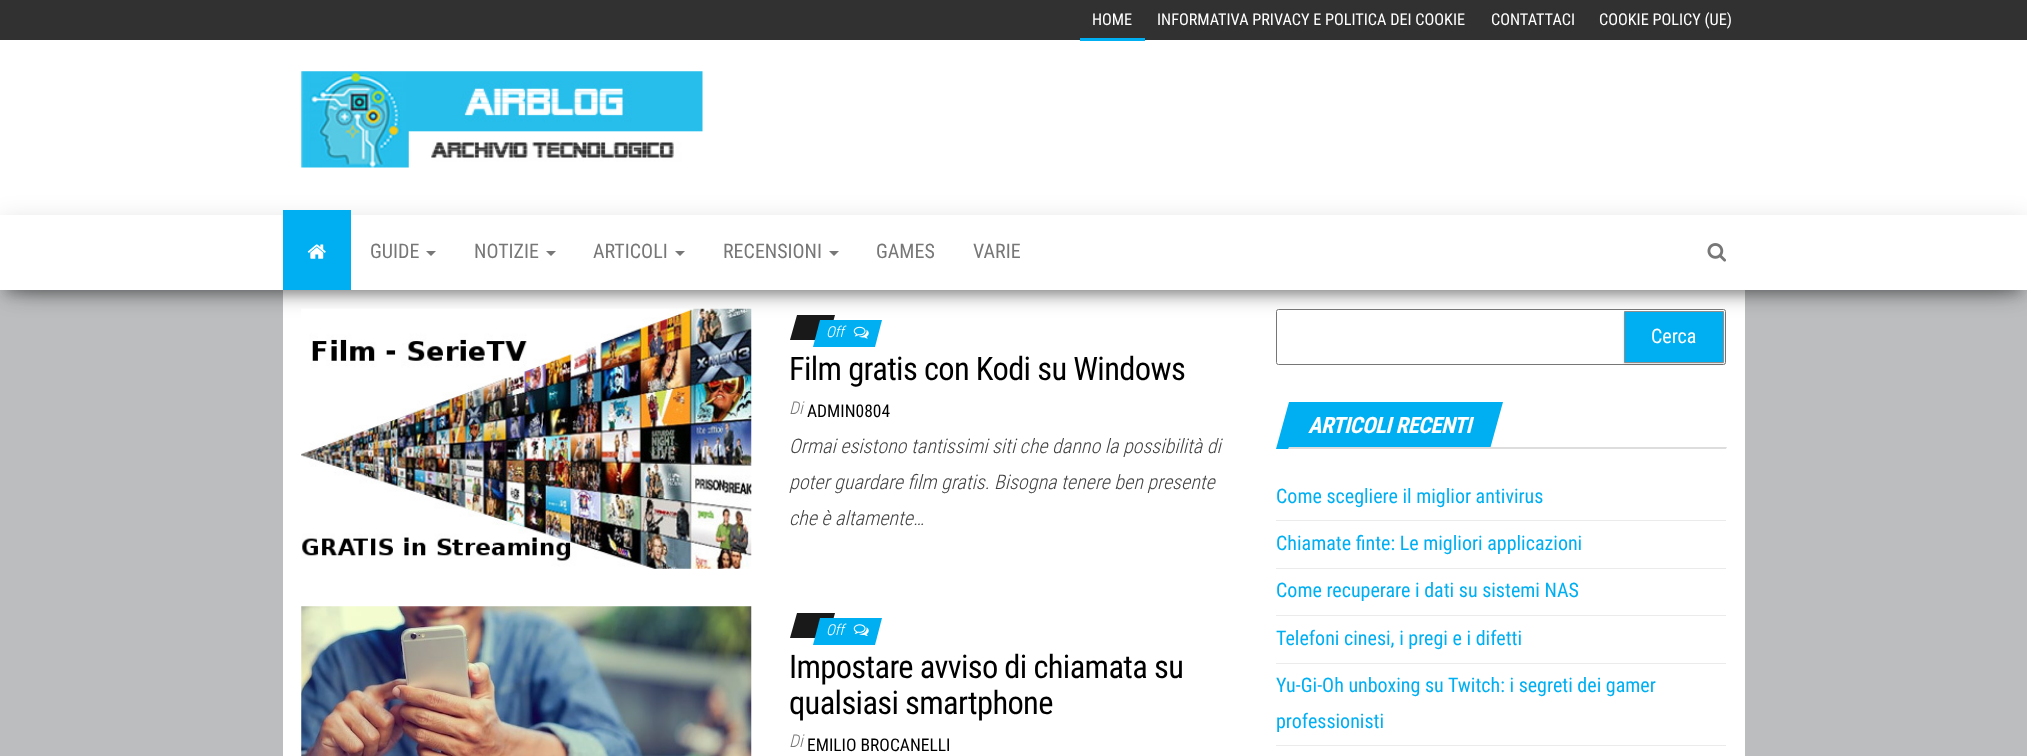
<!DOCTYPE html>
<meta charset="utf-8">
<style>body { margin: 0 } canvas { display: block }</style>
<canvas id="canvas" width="2027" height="756"></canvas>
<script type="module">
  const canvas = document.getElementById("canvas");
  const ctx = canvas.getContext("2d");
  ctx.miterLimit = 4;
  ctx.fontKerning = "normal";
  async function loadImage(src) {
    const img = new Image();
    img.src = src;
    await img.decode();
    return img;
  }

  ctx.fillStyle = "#bbbdbf";
  ctx.fillRect(0, 0, 2027, 756);
  ctx.fillStyle = "#313131";
  ctx.fillRect(0, 0, 2027, 40);
  ctx.font = "16.25px Roboto Condensed";
  ctx.fillStyle = "#ffffff";
  ctx.fillText("HOME", 1092, 25);
  ctx.fillRect(0, 40, 2027, 175);
  ctx.fillStyle = "#00aff2";
  ctx.fillRect(1080, 38, 65, 3);
  ctx.fillStyle = "#ffffff";
  ctx.fillText("INFORMATIVA PRIVACY E POLITICA DEI COOKIE", 1157, 25);
  ctx.fillText("CONTATTACI", 1491, 25);
  ctx.fillText("COOKIE POLICY (UE)", 1599, 25);
  ctx.drawImage(await loadImage("img1.png"), 301, 71, 402, 97);
  ctx.fillRect(283, 290, 1462, 466);
  ctx.fillStyle = "rgba(0, 0, 0, 0.2)";
  ctx.filter = "blur(6px)";
  ctx.beginPath();
  ctx.rect(6, 231, 2015, 63);
  ctx.fill();
  ctx.filter = "none";
  ctx.fillStyle = "rgba(0, 0, 0, 0.12)";
  ctx.filter = "blur(12.5px)";
  ctx.beginPath();
  ctx.rect(0, 219, 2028, 75);
  ctx.fill();
  ctx.filter = "none";
  ctx.fillStyle = "rgba(0, 0, 0, 0.42)";
  ctx.filter = "blur(12.5px)";
  ctx.beginPath();
  ctx.rect(15, 243, 1998, 45);
  ctx.fill();
  ctx.filter = "none";
  ctx.fillStyle = "#ffffff";
  ctx.fillRect(0, 215, 2027, 75);
  ctx.fillStyle = "#00aff2";
  ctx.fillRect(283, 210, 68, 80);
  ctx.drawImage(await loadImage("img2.png"), 307, 244, 19, 15);
  ctx.font = "20px Roboto Condensed";
  ctx.fillStyle = "#777777";
  ctx.fillText("GUIDE", 370, 258);
  ctx.beginPath();
  ctx.moveTo(426, 251);
  ctx.lineTo(436, 251);
  ctx.lineTo(431, 256);
  ctx.closePath();
  ctx.fill();
  ctx.fillText("NOTIZIE", 474, 258);
  ctx.beginPath();
  ctx.moveTo(546, 251);
  ctx.lineTo(556, 251);
  ctx.lineTo(551, 256);
  ctx.closePath();
  ctx.fill();
  ctx.fillText("ARTICOLI", 593, 258);
  ctx.beginPath();
  ctx.moveTo(675, 251);
  ctx.lineTo(685, 251);
  ctx.lineTo(680, 256);
  ctx.closePath();
  ctx.fill();
  ctx.fillText("RECENSIONI", 723, 258);
  ctx.beginPath();
  ctx.moveTo(829, 251);
  ctx.lineTo(839, 251);
  ctx.lineTo(834, 256);
  ctx.closePath();
  ctx.fill();
  ctx.fillText("GAMES", 876, 258);
  ctx.fillText("VARIE", 973, 258);
  ctx.drawImage(await loadImage("img3.png"), 1707, 243, 19, 19);
  ctx.drawImage(await loadImage("img4.png"), 301, 308, 451, 261);
  ctx.fillStyle = "#191919";
  ctx.beginPath();
  ctx.moveTo(797, 315);
  ctx.lineTo(835, 315);
  ctx.lineTo(828, 340);
  ctx.lineTo(790, 340);
  ctx.closePath();
  ctx.fill();
  ctx.fillStyle = "#00aff2";
  ctx.beginPath();
  ctx.moveTo(820, 320);
  ctx.lineTo(882, 320);
  ctx.lineTo(875, 347);
  ctx.lineTo(813, 347);
  ctx.closePath();
  ctx.fill();
  ctx.font = "italic 300 15px Roboto Condensed";
  ctx.fillStyle = "#ffffff";
  ctx.fillText("Off", 826, 337);
  ctx.drawImage(await loadImage("img5.png"), 853, 326, 16, 13);
  ctx.letterSpacing = "-0.65px";
  ctx.font = "32.5px Roboto Condensed";
  ctx.fillStyle = "#000000";
  ctx.fillText("Film gratis con Kodi su Windows", 789, 380);
  ctx.letterSpacing = "0px";
  ctx.font = "italic 300 17.5px Roboto Condensed";
  ctx.fillStyle = "#777777";
  ctx.fillText("Di", 789, 414);
  ctx.font = "17.5px Roboto Condensed";
  ctx.fillStyle = "#000000";
  ctx.fillText("ADMIN0804", 807, 417);
  ctx.font = "italic 300 20px Roboto Condensed";
  ctx.fillStyle = "#404040";
  ctx.fillText("Ormai esistono tantissimi siti che danno la possibilità di", 789, 453);
  ctx.fillText("poter guardare film gratis. Bisogna tenere ben presente", 789, 489);
  ctx.fillText("che è altamente…", 789, 525);
  ctx.drawImage(await loadImage("img6.png"), 301, 606, 451, 150);
  ctx.fillStyle = "#191919";
  ctx.beginPath();
  ctx.moveTo(797, 613);
  ctx.lineTo(835, 613);
  ctx.lineTo(828, 638);
  ctx.lineTo(790, 638);
  ctx.closePath();
  ctx.fill();
  ctx.fillStyle = "#00aff2";
  ctx.beginPath();
  ctx.moveTo(820, 618);
  ctx.lineTo(882, 618);
  ctx.lineTo(875, 645);
  ctx.lineTo(813, 645);
  ctx.closePath();
  ctx.fill();
  ctx.font = "italic 300 15px Roboto Condensed";
  ctx.fillStyle = "#ffffff";
  ctx.fillText("Off", 826, 635);
  ctx.drawImage(await loadImage("img7.png"), 853, 624, 16, 12);
  ctx.letterSpacing = "-0.65px";
  ctx.font = "32.5px Roboto Condensed";
  ctx.fillStyle = "#000000";
  ctx.fillText("Impostare avviso di chiamata su", 789, 678);
  ctx.fillText("qualsiasi smartphone", 789, 714);
  ctx.letterSpacing = "0px";
  ctx.font = "italic 300 17.5px Roboto Condensed";
  ctx.fillStyle = "#777777";
  ctx.fillText("Di", 789, 747);
  ctx.font = "17.5px Roboto Condensed";
  ctx.fillStyle = "#000000";
  ctx.fillText("EMILIO BROCANELLI", 807, 751);
  ctx.fillStyle = "#ffffff";
  ctx.beginPath();
  ctx.roundRect(1276.5, 309.5, 449, 55, 2);
  ctx.fill();
  ctx.strokeStyle = "#767676";
  ctx.stroke();
  ctx.fillStyle = "rgba(0, 0, 0, 0.15)";
  ctx.filter = "blur(1px)";
  ctx.beginPath();
  ctx.rect(1624, 313, 100, 51);
  ctx.fill();
  ctx.filter = "none";
  ctx.fillStyle = "#00aff2";
  ctx.beginPath();
  ctx.rect(1624.5, 311.5, 99, 51);
  ctx.fill();
  ctx.strokeStyle = "#8e8e8e";
  ctx.stroke();
  ctx.font = "20px Roboto Condensed";
  ctx.fillStyle = "#ffffff";
  ctx.fillText("Cerca", 1651, 343);
  ctx.fillStyle = "#00aff2";
  ctx.beginPath();
  ctx.moveTo(1289, 402);
  ctx.lineTo(1503, 402);
  ctx.lineTo(1490, 449);
  ctx.lineTo(1276, 449);
  ctx.closePath();
  ctx.fill();
  ctx.letterSpacing = "-0.5px";
  ctx.font = "italic bold 22.5px Roboto Condensed";
  ctx.fillStyle = "#ffffff";
  ctx.fillText("ARTICOLI RECENTI", 1308, 433);
  ctx.fillStyle = "#dddddd";
  ctx.beginPath();
  ctx.moveTo(1289, 447);
  ctx.lineTo(1727, 447);
  ctx.lineTo(1726, 449);
  ctx.lineTo(1288, 449);
  ctx.closePath();
  ctx.fill();
  ctx.fillStyle = "#ebebeb";
  ctx.fillRect(1276, 520, 450, 1);
  ctx.letterSpacing = "0px";
  ctx.font = "20px Roboto Condensed";
  ctx.fillStyle = "#00aff2";
  ctx.fillText("Come scegliere il miglior antivirus", 1276, 503);
  ctx.fillStyle = "#ebebeb";
  ctx.fillRect(1276, 568, 450, 1);
  ctx.fillStyle = "#00aff2";
  ctx.fillText("Chiamate finte: Le migliori applicazioni", 1276, 550);
  ctx.fillStyle = "#ebebeb";
  ctx.fillRect(1276, 615, 450, 1);
  ctx.fillStyle = "#00aff2";
  ctx.fillText("Come recuperare i dati su sistemi NAS", 1276, 597);
  ctx.fillStyle = "#ebebeb";
  ctx.fillRect(1276, 663, 450, 1);
  ctx.fillStyle = "#00aff2";
  ctx.fillText("Telefoni cinesi, i pregi e i difetti", 1276, 645);
  ctx.fillStyle = "#ebebeb";
  ctx.fillRect(1276, 745, 450, 1);
  ctx.fillStyle = "#00aff2";
  ctx.fillText("Yu-Gi-Oh unboxing su Twitch: i segreti dei gamer", 1276, 692);
  ctx.fillText("professionisti", 1276, 728);
</script>
